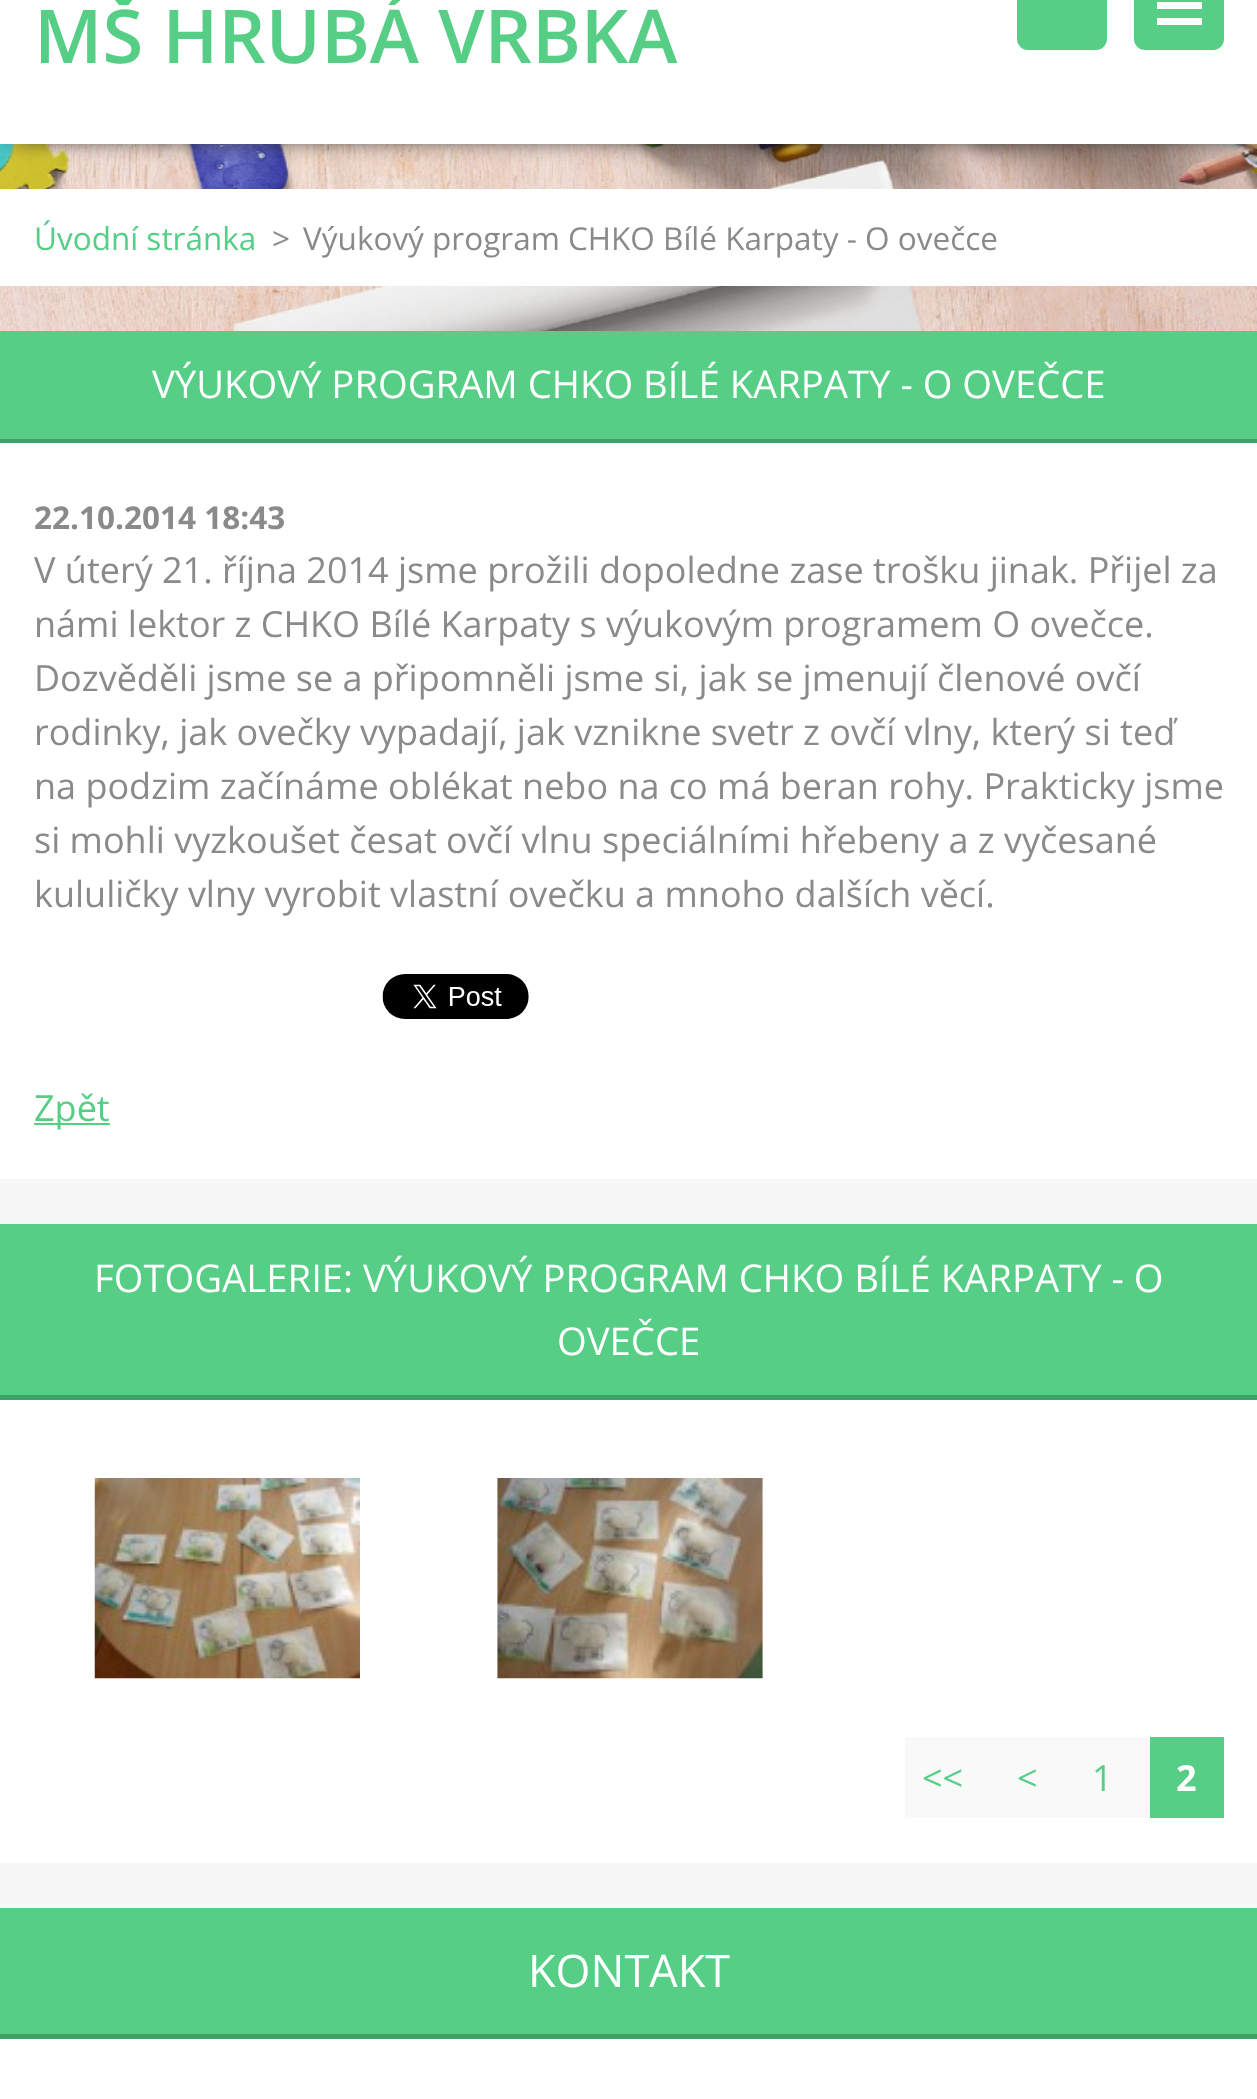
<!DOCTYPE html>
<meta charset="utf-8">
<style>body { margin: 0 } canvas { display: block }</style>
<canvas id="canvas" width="1257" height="2099"></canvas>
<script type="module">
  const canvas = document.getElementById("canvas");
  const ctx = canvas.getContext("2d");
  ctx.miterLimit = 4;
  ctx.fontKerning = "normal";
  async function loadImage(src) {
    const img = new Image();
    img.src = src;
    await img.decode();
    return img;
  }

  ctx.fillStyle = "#f7f7f7";
  ctx.fillRect(0, 0, 1257, 2099);
  ctx.drawImage(await loadImage("img4.png"), 0, 144, 1257, 187);
  ctx.fillStyle = "#353535";
  ctx.filter = "blur(11px)";
  ctx.beginPath();
  ctx.rect(14, -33, 1230, 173);
  ctx.fill();
  ctx.filter = "none";
  ctx.fillStyle = "#ffffff";
  ctx.fillRect(0, 0, 1257, 144);
  ctx.font = "600 74.25px Open Sans";
  ctx.fillStyle = "#56ce86";
  ctx.fillText("MŠ HRUBÁ VRBKA", 34, 63);
  ctx.beginPath();
  ctx.roundRect(1017, -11, 90, 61, 11);
  ctx.fill();
  ctx.beginPath();
  ctx.roundRect(1134, -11, 90, 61, 11);
  ctx.fill();
  ctx.fillStyle = "#ffffff";
  ctx.fillRect(1157, 2, 45, 7);
  ctx.fillRect(1157, 18, 45, 7);
  ctx.fillRect(0, 189, 1257, 97);
  ctx.font = "31.5px Open Sans";
  ctx.fillStyle = "#56ce86";
  ctx.fillText("Úvodní stránka", 34, 250);
  ctx.fillStyle = "#8a8a8a";
  ctx.fillText(">", 272, 250);
  ctx.fillText("Výukový program CHKO Bílé Karpaty - O ovečce", 303, 250);
  ctx.fillStyle = "#ffffff";
  ctx.fillRect(0, 443, 1257, 736);
  ctx.fillStyle = "#56ce86";
  ctx.fillRect(0, 331, 1257, 108);
  ctx.fillStyle = "#3ca265";
  ctx.fillRect(0, 439, 1257, 4);
  ctx.font = "38.25px Open Sans";
  ctx.fillStyle = "#ffffff";
  ctx.fillText("VÝUKOVÝ PROGRAM CHKO BÍLÉ KARPATY - O OVEČCE", 152, 398);
  ctx.font = "bold 31.5px Open Sans";
  ctx.fillStyle = "#8a8a8a";
  ctx.fillText("22.10.2014 18:43", 34, 529);
  ctx.font = "36px Open Sans";
  ctx.fillText("V úterý 21. října 2014 jsme prožili dopoledne zase trošku jinak. Přijel za", 34, 583);
  ctx.fillText("námi lektor z CHKO Bílé Karpaty s výukovým programem O ovečce.", 34, 637);
  ctx.fillText("Dozvěděli jsme se a připomněli jsme si, jak se jmenují členové ovčí", 34, 691);
  ctx.fillText("rodinky, jak ovečky vypadají, jak vznikne svetr z ovčí vlny, který si teď", 34, 745);
  ctx.fillText("na podzim začínáme oblékat nebo na co má beran rohy. Prakticky jsme", 34, 799);
  ctx.fillText("si mohli vyzkoušet česat ovčí vlnu speciálními hřebeny a z vyčesané", 34, 853);
  ctx.fillText("kululičky vlny vyrobit vlastní ovečku a mnoho dalších věcí.", 34, 907);
  ctx.drawImage(await loadImage("img1.png"), 382, 974, 147, 45);
  ctx.fillStyle = "#56ce86";
  ctx.fillRect(34, 1123, 76, 2);
  ctx.fillText("Zpět", 34, 1121);
  ctx.fillStyle = "#ffffff";
  ctx.fillRect(0, 1400, 1257, 463);
  ctx.fillStyle = "#56ce86";
  ctx.fillRect(0, 1224, 1257, 171);
  ctx.fillStyle = "#3ca265";
  ctx.fillRect(0, 1395, 1257, 5);
  ctx.font = "38.25px Open Sans";
  ctx.fillStyle = "#ffffff";
  ctx.fillText("FOTOGALERIE: VÝUKOVÝ PROGRAM CHKO BÍLÉ KARPATY - O", 94, 1292);
  ctx.fillText("OVEČCE", 557, 1355);
  ctx.drawImage(await loadImage("img2.png"), 94, 1478, 266, 201);
  ctx.drawImage(await loadImage("img3.png"), 497, 1478, 266, 201);
  ctx.fillStyle = "#f9f9f9";
  ctx.fillRect(905, 1737, 245, 81);
  ctx.font = "36px Open Sans";
  ctx.fillStyle = "#56ce86";
  ctx.fillText("<<", 922, 1791);
  ctx.fillText("<", 1017, 1791);
  ctx.fillText("1", 1092, 1791);
  ctx.fillRect(1150, 1737, 74, 81);
  ctx.font = "bold 36px Open Sans";
  ctx.fillStyle = "#ffffff";
  ctx.fillText("2", 1176, 1791);
  ctx.fillRect(0, 2039, 1257, 60);
  ctx.fillStyle = "#56ce86";
  ctx.fillRect(0, 1908, 1257, 126);
  ctx.fillStyle = "#3ca265";
  ctx.fillRect(0, 2034, 1257, 5);
  ctx.font = "45px Open Sans";
  ctx.fillStyle = "#ffffff";
  ctx.fillText("KONTAKT", 528, 1987);
</script>
